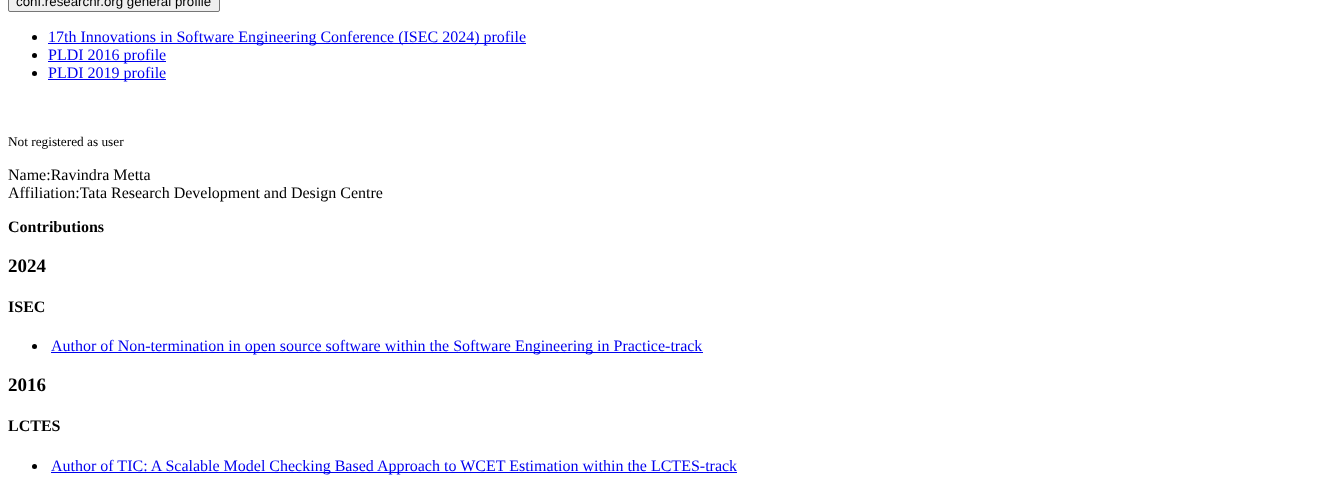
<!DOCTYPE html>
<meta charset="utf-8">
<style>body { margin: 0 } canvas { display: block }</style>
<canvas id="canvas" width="1337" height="488"></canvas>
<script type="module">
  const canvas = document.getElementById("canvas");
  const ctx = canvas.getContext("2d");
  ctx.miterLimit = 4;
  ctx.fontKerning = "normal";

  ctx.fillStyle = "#ffffff";
  ctx.fillRect(0, 0, 1337, 488);
  ctx.fillStyle = "#efefef";
  ctx.beginPath();
  ctx.roundRect(8.5, -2.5, 211, 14, 1.5);
  ctx.fill();
  ctx.strokeStyle = "#767676";
  ctx.stroke();
  ctx.font = "13.3px Liberation Sans";
  ctx.fillStyle = "#000000";
  ctx.fillText("conf.researchr.org general profile", 16, 6);
  ctx.beginPath();
  ctx.arc(34.5, 37.5, 2.5, 0, Math.PI * 2);
  ctx.fill();
  ctx.fillStyle = "#0000ee";
  ctx.fillRect(48, 43, 478, 1);
  ctx.font = "16px Liberation Serif";
  ctx.fillText("17th Innovations in Software Engineering Conference (ISEC 2024) profile", 48, 42);
  ctx.fillStyle = "#000000";
  ctx.beginPath();
  ctx.arc(34.5, 55.5, 2.5, 0, Math.PI * 2);
  ctx.fill();
  ctx.fillStyle = "#0000ee";
  ctx.fillRect(48, 61, 118, 1);
  ctx.fillText("PLDI 2016 profile", 48, 60);
  ctx.fillStyle = "#000000";
  ctx.beginPath();
  ctx.arc(34.5, 73.5, 2.5, 0, Math.PI * 2);
  ctx.fill();
  ctx.fillStyle = "#0000ee";
  ctx.fillRect(48, 79, 118, 1);
  ctx.fillText("PLDI 2019 profile", 48, 78);
  ctx.font = "13.3px Liberation Serif";
  ctx.fillStyle = "#000000";
  ctx.fillText("Not registered as user", 8, 146);
  ctx.font = "16px Liberation Serif";
  ctx.fillText("Name:Ravindra Metta", 8, 180);
  ctx.fillText("Affiliation:Tata Research Development and Design Centre", 8, 198);
  ctx.font = "bold 16px Liberation Serif";
  ctx.fillText("Contributions", 8, 232);
  ctx.font = "bold 19px Liberation Serif";
  ctx.fillText("2024", 8, 272);
  ctx.font = "bold 16px Liberation Serif";
  ctx.fillText("ISEC", 8, 312);
  ctx.beginPath();
  ctx.arc(34.5, 346.5, 2.5, 0, Math.PI * 2);
  ctx.fill();
  ctx.fillStyle = "#0000ee";
  ctx.fillRect(51, 352, 652, 1);
  ctx.font = "16px Liberation Serif";
  ctx.fillText("Author of Non-termination in open source software within the Software Engineering in Practice-track", 51, 351);
  ctx.font = "bold 19px Liberation Serif";
  ctx.fillStyle = "#000000";
  ctx.fillText("2016", 8, 391);
  ctx.font = "bold 16px Liberation Serif";
  ctx.fillText("LCTES", 8, 431);
  ctx.beginPath();
  ctx.arc(34.5, 466.5, 2.5, 0, Math.PI * 2);
  ctx.fill();
  ctx.fillStyle = "#0000ee";
  ctx.fillRect(51, 472, 686, 1);
  ctx.font = "16px Liberation Serif";
  ctx.fillText("Author of TIC: A Scalable Model Checking Based Approach to WCET Estimation within the LCTES-track", 51, 471);
</script>
